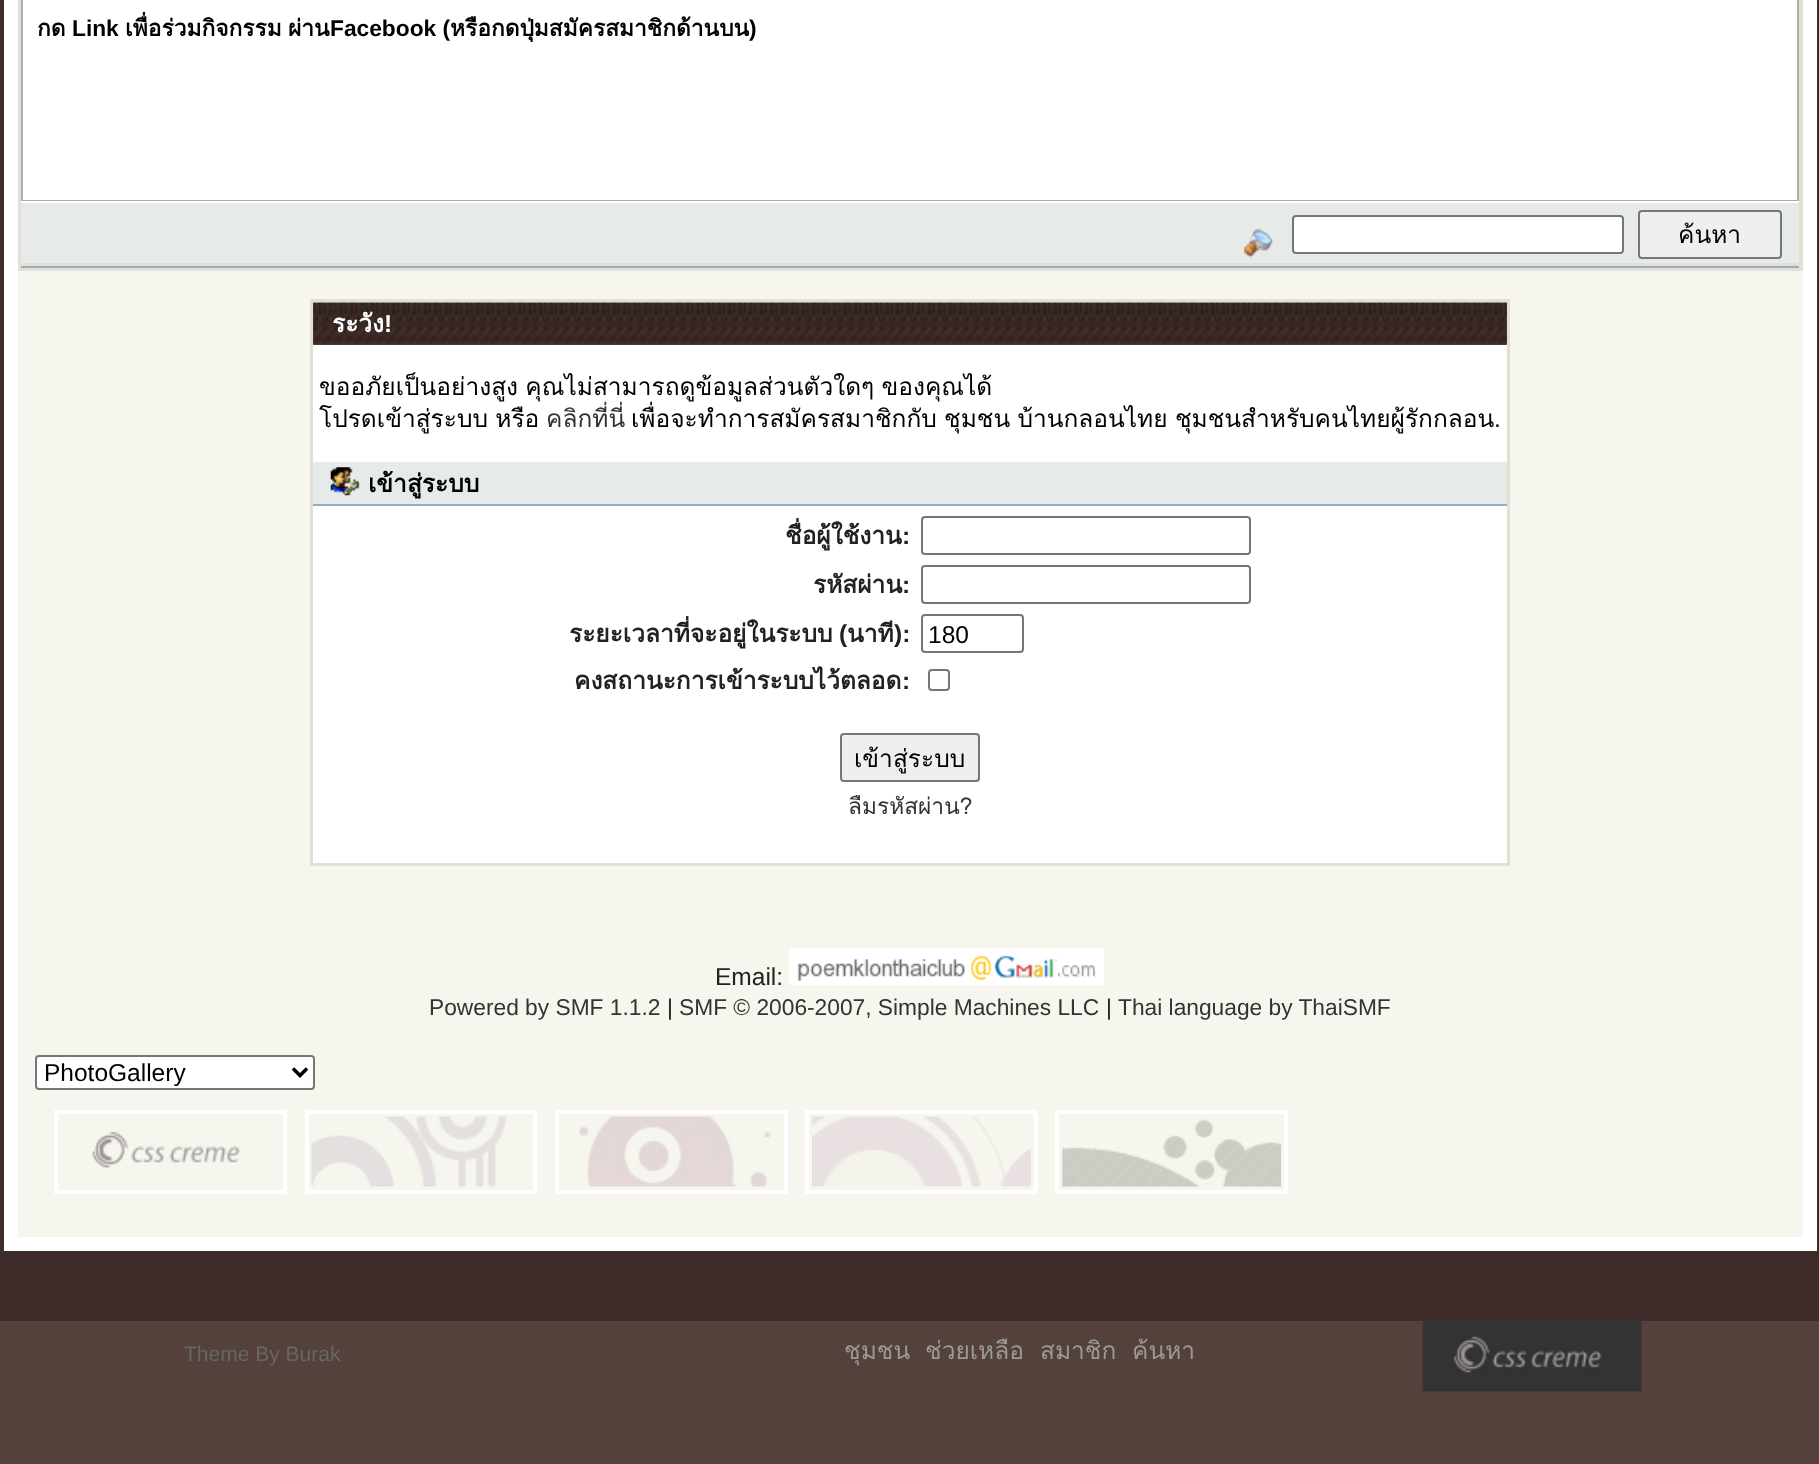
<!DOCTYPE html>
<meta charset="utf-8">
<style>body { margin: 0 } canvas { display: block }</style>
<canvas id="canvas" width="1819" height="1464"></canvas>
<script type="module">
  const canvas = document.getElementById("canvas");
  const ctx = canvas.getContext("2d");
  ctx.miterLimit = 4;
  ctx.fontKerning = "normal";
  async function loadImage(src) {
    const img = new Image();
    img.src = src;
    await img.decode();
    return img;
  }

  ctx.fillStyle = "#3d2c29";
  ctx.fillRect(0, 0, 1819, 1464);
  ctx.fillStyle = "#f6f6ee";
  ctx.fillRect(18, 271, 1785, 966);
  ctx.strokeStyle = "#ffffff";
  ctx.lineWidth = 14;
  ctx.strokeRect(11, -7, 1799, 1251);
  ctx.strokeStyle = "#e2e0d4";
  ctx.lineWidth = 4;
  ctx.strokeRect(20, -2, 1781, 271);
  ctx.fillStyle = "#adadad";
  ctx.fillRect(21, 0, 1778, 201);
  ctx.fillStyle = "#ffffff";
  ctx.fillRect(23, 0, 1774, 200);
  ctx.font = "bold 22.75px Loma";
  ctx.fillStyle = "#000000";
  ctx.fillText("กด", 37, 36);
  ctx.font = "bold 22.75px Liberation Sans";
  ctx.fillText("Link", 72, 36);
  ctx.font = "bold 22.75px Loma";
  ctx.fillText("เพื่อร่วมกิจกรรม", 125, 36);
  ctx.fillText("ผ่าน", 288, 36);
  ctx.font = "bold 22.75px Liberation Sans";
  ctx.fillText("Facebook (", 330, 36);
  ctx.font = "bold 22.75px Loma";
  ctx.fillText("หรือกดปุ่มสมัครสมาชิกด้านบน", 450, 36);
  ctx.font = "bold 22.75px Liberation Sans";
  ctx.fillText(")", 749, 36);
  ctx.fillStyle = "#e2e0d4";
  ctx.fillRect(21, 263, 1778, 3);
  ctx.fillStyle = "#e6eae9";
  ctx.fillRect(21, 203, 1778, 60);
  ctx.fillStyle = "#ffffff";
  ctx.fillRect(21, 201, 1778, 2);
  ctx.fillStyle = "#9baebf";
  ctx.fillRect(21, 266, 1778, 2);
  ctx.drawImage(await loadImage("img1.png"), 1244, 229, 29, 29);
  ctx.fillStyle = "#ffffff";
  ctx.beginPath();
  ctx.roundRect(1293, 216, 330, 37, 3);
  ctx.fill();
  ctx.strokeStyle = "#767676";
  ctx.lineWidth = 2;
  ctx.stroke();
  ctx.fillStyle = "#efefef";
  ctx.beginPath();
  ctx.roundRect(1639, 211, 142, 47, 3);
  ctx.fill();
  ctx.stroke();
  ctx.font = "24.5px Loma";
  ctx.fillStyle = "#000000";
  ctx.fillText("ค้นหา", 1678, 243);
  ctx.strokeStyle = "#e2e0d4";
  ctx.lineWidth = 4;
  ctx.strokeRect(312, 301, 1196, 563);
  ctx.drawImage(await loadImage("img2.png"), 313, 302, 1194, 43);
  ctx.font = "bold 24.5px Loma";
  ctx.fillStyle = "#ffffff";
  ctx.fillText("ระวัง", 332, 332);
  ctx.font = "bold 24.5px Liberation Sans";
  ctx.fillText("!", 384, 332);
  ctx.fillRect(313, 345, 1194, 117);
  ctx.wordSpacing = "-1px";
  ctx.font = "24.5px Loma";
  ctx.fillStyle = "#000000";
  ctx.fillText("ขออภัยเป็นอย่างสูง คุณไม่สามารถดูข้อมูลส่วนตัวใดๆ ของคุณได้", 319, 395);
  ctx.fillText("โปรดเข้าสู่ระบบ หรือ", 319, 427);
  ctx.wordSpacing = "0px";
  ctx.fillStyle = "#333333";
  ctx.fillText("คลิกที่นี่", 546, 427);
  ctx.wordSpacing = "-1px";
  ctx.fillStyle = "#000000";
  ctx.fillText("เพื่อจะทำการสมัครสมาชิกกับ ชุมชน บ้านกลอนไทย ชุมชนสำหรับคนไทยผู้รักกลอน", 631, 427);
  ctx.wordSpacing = "0px";
  ctx.font = "24.5px Liberation Sans";
  ctx.fillText(".", 1494, 427);
  ctx.fillStyle = "#e6eae9";
  ctx.fillRect(313, 462, 1194, 42);
  ctx.fillStyle = "#9baebf";
  ctx.fillRect(313, 504, 1194, 2);
  ctx.drawImage(await loadImage("img3.png"), 330, 467, 30, 29);
  ctx.font = "bold 24.5px Loma";
  ctx.fillStyle = "#000000";
  ctx.fillText("เข้าสู่ระบบ", 368, 492);
  ctx.fillStyle = "#ffffff";
  ctx.fillRect(313, 506, 1194, 357);
  ctx.fillStyle = "#222222";
  ctx.fillText("ชื่อผู้ใช้งาน", 785, 544);
  ctx.font = "bold 24.5px Liberation Sans";
  ctx.fillText(":", 902, 544);
  ctx.beginPath();
  ctx.roundRect(922, 517, 328, 37, 3);
  ctx.strokeStyle = "#767676";
  ctx.lineWidth = 2;
  ctx.stroke();
  ctx.font = "bold 24.5px Loma";
  ctx.fillText("รหัสผ่าน", 813, 593);
  ctx.font = "bold 24.5px Liberation Sans";
  ctx.fillText(":", 902, 593);
  ctx.beginPath();
  ctx.roundRect(922, 566, 328, 37, 3);
  ctx.stroke();
  ctx.font = "bold 24.5px Loma";
  ctx.fillText("ระยะเวลาที่จะอยู่ในระบบ", 569, 642);
  ctx.font = "bold 24.5px Liberation Sans";
  ctx.fillText("(", 839, 642);
  ctx.font = "bold 24.5px Loma";
  ctx.fillText("นาที", 847, 642);
  ctx.font = "bold 24.5px Liberation Sans";
  ctx.fillText("):", 894, 642);
  ctx.beginPath();
  ctx.roundRect(922, 615, 101, 37, 3);
  ctx.stroke();
  ctx.font = "24.5px Liberation Sans";
  ctx.fillStyle = "#000000";
  ctx.fillText("180", 928, 643);
  ctx.font = "bold 24.5px Loma";
  ctx.fillStyle = "#222222";
  ctx.fillText("คงสถานะการเข้าระบบไว้ตลอด", 574, 689);
  ctx.font = "bold 24.5px Liberation Sans";
  ctx.fillText(":", 902, 689);
  ctx.beginPath();
  ctx.roundRect(929, 670, 20, 20, 3);
  ctx.stroke();
  ctx.fillStyle = "#efefef";
  ctx.beginPath();
  ctx.roundRect(841, 734, 138, 47, 3);
  ctx.fill();
  ctx.stroke();
  ctx.font = "24.5px Loma";
  ctx.fillStyle = "#000000";
  ctx.fillText("เข้าสู่ระบบ", 854, 767);
  ctx.font = "22.75px Loma";
  ctx.fillStyle = "#333333";
  ctx.fillText("ลืมรหัสผ่าน?", 848, 814);
  ctx.font = "24.5px Liberation Sans";
  ctx.fillStyle = "#222222";
  ctx.fillText("Email:", 715, 985);
  ctx.drawImage(await loadImage("img4.png"), 789, 948, 316, 38);
  ctx.font = "22.75px Liberation Sans";
  ctx.fillStyle = "#333333";
  ctx.fillText("Powered by SMF 1.1.2", 429, 1015);
  ctx.fillStyle = "#222222";
  ctx.fillText("|", 667, 1015);
  ctx.fillStyle = "#333333";
  ctx.fillText("SMF © 2006-2007, Simple Machines LLC", 679, 1015);
  ctx.fillStyle = "#222222";
  ctx.fillText("|", 1106, 1015);
  ctx.fillStyle = "#333333";
  ctx.fillText("Thai language by ThaiSMF", 1118, 1015);
  ctx.fillStyle = "#ffffff";
  ctx.beginPath();
  ctx.roundRect(36, 1056, 278, 33, 3);
  ctx.fill();
  ctx.stroke();
  ctx.beginPath();
  ctx.moveTo(293, 1068.5);
  ctx.lineTo(300, 1075.5);
  ctx.lineTo(307, 1068.5);
  ctx.strokeStyle = "#000000";
  ctx.lineWidth = 3.5;
  ctx.stroke();
  ctx.font = "24.5px Liberation Sans";
  ctx.fillStyle = "#000000";
  ctx.fillText("PhotoGallery", 44, 1081);
  ctx.strokeStyle = "#ffffff";
  ctx.lineWidth = 4;
  ctx.strokeRect(56, 1112, 229, 80);
  ctx.strokeRect(307, 1112, 228, 80);
  ctx.strokeRect(557, 1112, 229, 80);
  ctx.strokeRect(807, 1112, 229, 80);
  ctx.strokeRect(1057, 1112, 229, 80);
  ctx.drawImage(await loadImage("img5.png"), 92, 1131, 149, 38);
  ctx.drawImage(await loadImage("img6.png"), 311, 1116, 195, 71);
  ctx.drawImage(await loadImage("img7.png"), 579, 1116, 192, 71);
  ctx.drawImage(await loadImage("img8.png"), 812, 1116, 219, 71);
  ctx.drawImage(await loadImage("img9.png"), 1062, 1119, 219, 68);
  ctx.fillStyle = "#55413b";
  ctx.fillRect(0, 1321, 1819, 143);
  ctx.font = "21px Liberation Sans";
  ctx.fillStyle = "#666666";
  ctx.fillText("Theme By Burak", 184, 1361);
  ctx.font = "24.5px Loma";
  ctx.fillStyle = "#999999";
  ctx.fillText("ชุมชน", 844, 1359);
  ctx.fillText("ช่วยเหลือ", 925, 1359);
  ctx.fillText("สมาชิก", 1040, 1359);
  ctx.fillText("ค้นหา", 1132, 1359);
  ctx.drawImage(await loadImage("img10.png"), 1422, 1321, 220, 71);
</script>
